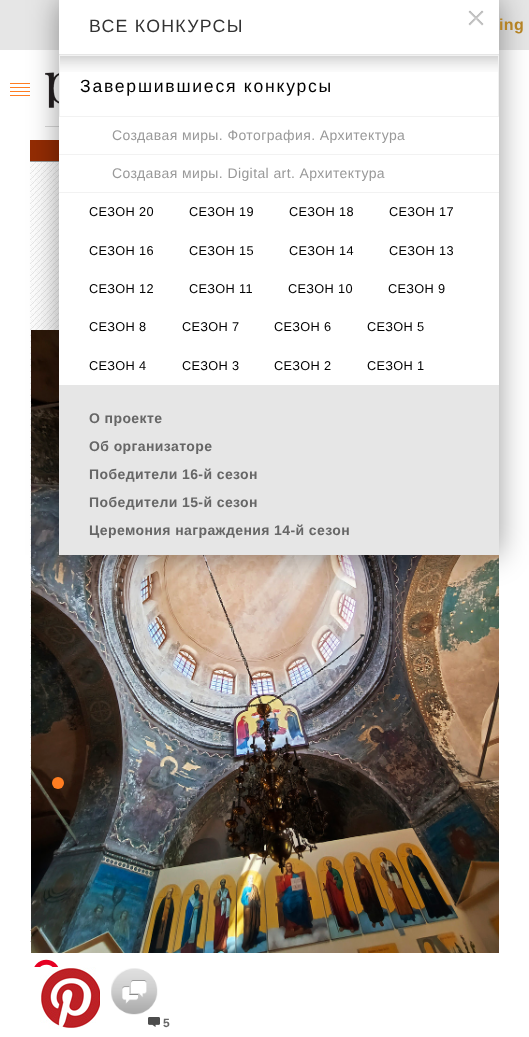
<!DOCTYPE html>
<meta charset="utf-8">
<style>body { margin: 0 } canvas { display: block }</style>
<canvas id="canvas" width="529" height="1037"></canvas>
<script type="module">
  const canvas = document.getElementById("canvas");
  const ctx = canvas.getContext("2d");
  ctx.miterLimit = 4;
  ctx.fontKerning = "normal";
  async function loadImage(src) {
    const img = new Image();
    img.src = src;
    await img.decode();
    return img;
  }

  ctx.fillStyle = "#ffffff";
  ctx.fillRect(0, 0, 529, 1037);
  ctx.fillStyle = "#e6e6e6";
  ctx.fillRect(0, 0, 529, 50);
  ctx.drawImage(await loadImage("img3.png"), 10, 83, 20, 13);
  ctx.drawImage(await loadImage("img4.png"), 45, 72, 14, 36);
  ctx.fillStyle = "#d9d9d9";
  ctx.fillRect(45, 126, 14, 1);
  ctx.fillStyle = "#932c04";
  ctx.fillRect(30, 140, 29, 21);
  ctx.drawImage(await loadImage("img5.png"), 30, 162, 29, 642);
  ctx.fillStyle = "#999999";
  ctx.fillRect(30, 161, 29, 1);
  ctx.drawImage(await loadImage("img6.png"), 31, 330, 468, 623);
  ctx.fillStyle = "rgba(0, 0, 0, 0.4)";
  ctx.filter = "blur(15px)";
  ctx.beginPath();
  ctx.rect(59, 0, 440, 555);
  ctx.fill();
  ctx.filter = "none";
  ctx.fillStyle = "#ffffff";
  ctx.fillRect(59, 0, 440, 385);
  ctx.fillStyle = "#e6e6e6";
  ctx.fillRect(59, 54, 440, 1);
  ctx.letterSpacing = "1.25px";
  ctx.font = "17.75px Liberation Sans";
  ctx.fillStyle = "#333333";
  ctx.fillText("ВСЕ КОНКУРСЫ", 89, 32);
  ctx.drawImage(await loadImage("img1.png"), 60, 56, 438, 16);
  ctx.strokeStyle = "#f2f2f2";
  ctx.strokeRect(59.5, 55.5, 439, 61);
  ctx.letterSpacing = "1.75px";
  ctx.font = "17.6px Liberation Sans";
  ctx.fillStyle = "#000000";
  ctx.fillText("Завершившиеся конкурсы", 80, 92);
  ctx.fillStyle = "#f2f2f2";
  ctx.fillRect(59, 154, 440, 1);
  ctx.letterSpacing = "0.4px";
  ctx.font = "14px Liberation Sans";
  ctx.fillStyle = "#999999";
  ctx.fillText("Создавая миры. Фотография. Архитектура", 112, 140);
  ctx.fillStyle = "#f2f2f2";
  ctx.fillRect(59, 192, 440, 1);
  ctx.fillStyle = "#999999";
  ctx.fillText("Создавая миры. Digital art. Архитектура", 112, 178);
  ctx.font = "12.75px Liberation Sans";
  ctx.fillStyle = "#000000";
  ctx.fillText("СЕЗОН 20", 89, 216);
  ctx.fillText("СЕЗОН 19", 189, 216);
  ctx.fillText("СЕЗОН 18", 289, 216);
  ctx.fillText("СЕЗОН 17", 389, 216);
  ctx.fillText("СЕЗОН 16", 89, 255);
  ctx.fillText("СЕЗОН 15", 189, 255);
  ctx.fillText("СЕЗОН 14", 289, 255);
  ctx.fillText("СЕЗОН 13", 389, 255);
  ctx.fillText("СЕЗОН 12", 89, 293);
  ctx.fillText("СЕЗОН 11", 189, 293);
  ctx.fillText("СЕЗОН 10", 288, 293);
  ctx.fillText("СЕЗОН 9", 388, 293);
  ctx.fillText("СЕЗОН 8", 89, 331);
  ctx.fillText("СЕЗОН 7", 182, 331);
  ctx.fillText("СЕЗОН 6", 274, 331);
  ctx.fillText("СЕЗОН 5", 367, 331);
  ctx.fillText("СЕЗОН 4", 89, 370);
  ctx.fillText("СЕЗОН 3", 182, 370);
  ctx.fillText("СЕЗОН 2", 274, 370);
  ctx.fillText("СЕЗОН 1", 367, 370);
  ctx.drawImage(await loadImage("img2.png"), 468, 10, 16, 16);
  ctx.fillStyle = "#e6e6e6";
  ctx.fillRect(59, 385, 440, 170);
  ctx.font = "bold 14px Liberation Sans";
  ctx.fillStyle = "#666666";
  ctx.fillText("О проекте", 89, 423);
  ctx.fillText("Об организаторе", 89, 451);
  ctx.fillText("Победители 16-й сезон", 89, 479);
  ctx.fillText("Победители 15-й сезон", 89, 507);
  ctx.fillText("Церемония награждения 14-й сезон", 89, 535);
  ctx.font = "bold 16px Liberation Sans";
  ctx.fillStyle = "#b58324";
  ctx.fillText("ing", 499, 30);
  ctx.fillStyle = "#ff7d21";
  ctx.beginPath();
  ctx.arc(58, 783, 6, 0, Math.PI * 2);
  ctx.fill();
  ctx.fillStyle = "#cccccc";
  ctx.fillRect(30, 930, 1, 1);
  ctx.fillRect(30, 941, 1, 1);
  ctx.drawImage(await loadImage("img7.png"), 32, 959, 28, 8);
  ctx.drawImage(await loadImage("img8.png"), 40, 967, 60, 62);
  ctx.drawImage(await loadImage("img9.png"), 111, 968, 47, 47);
  ctx.drawImage(await loadImage("img10.png"), 148, 1017, 12, 10);
  ctx.font = "bold 12px Liberation Sans";
  ctx.fillStyle = "#666666";
  ctx.fillText("5", 163, 1027);
</script>
